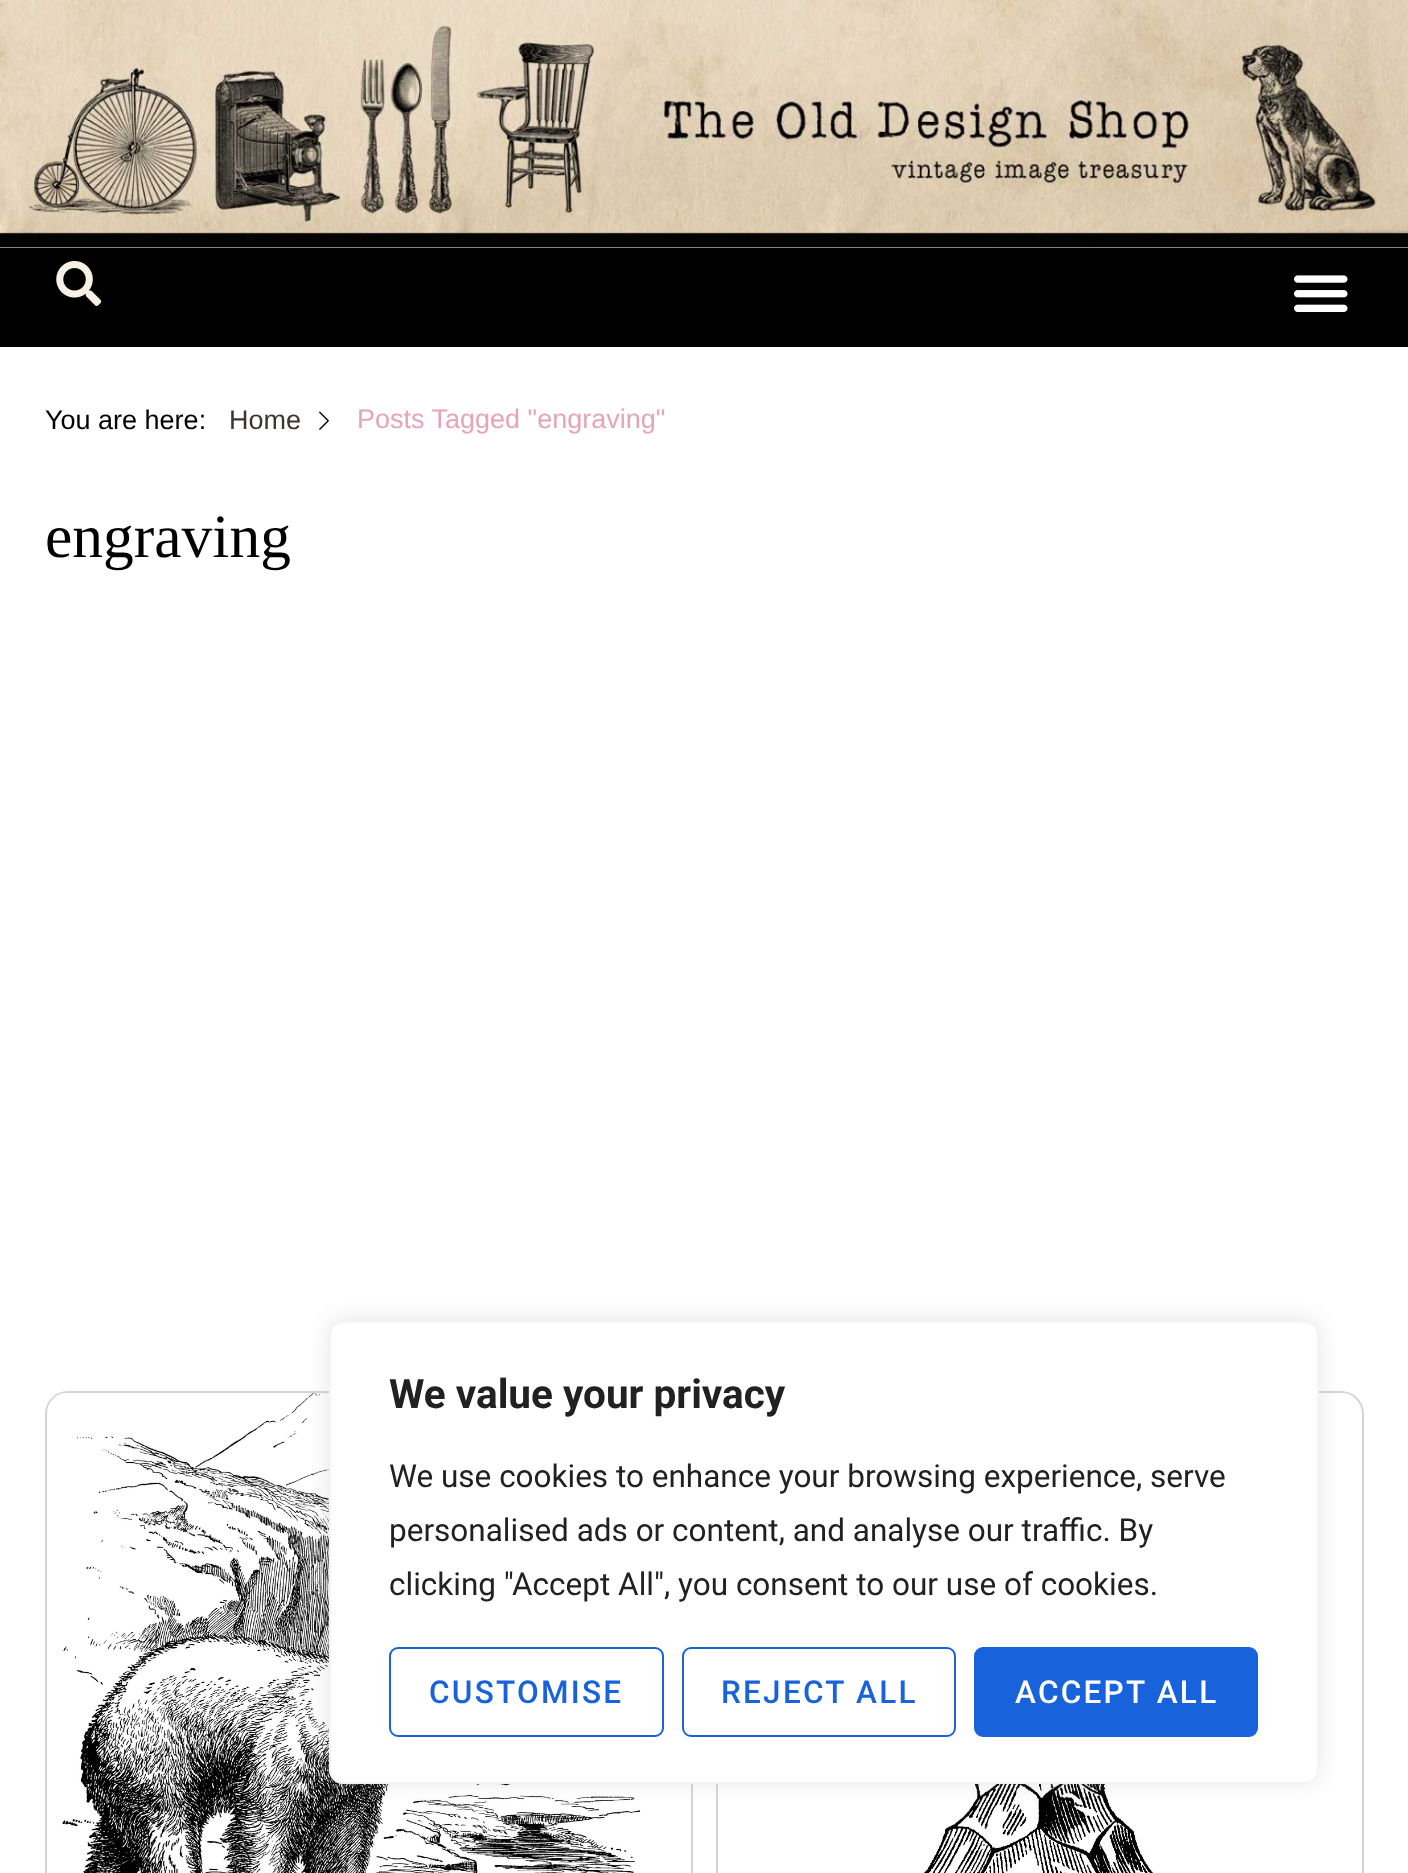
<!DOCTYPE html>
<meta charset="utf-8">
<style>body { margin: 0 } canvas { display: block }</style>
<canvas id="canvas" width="1408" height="1873"></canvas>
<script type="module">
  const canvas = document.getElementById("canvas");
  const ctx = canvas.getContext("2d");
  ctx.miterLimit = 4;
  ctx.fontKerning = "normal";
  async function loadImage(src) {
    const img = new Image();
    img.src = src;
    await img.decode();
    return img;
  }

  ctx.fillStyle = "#ffffff";
  ctx.fillRect(0, 0, 1408, 1873);
  ctx.drawImage(await loadImage("img1.png"), 0, 0, 1408, 248);
  ctx.fillStyle = "#000000";
  ctx.fillRect(0, 248, 1408, 99);
  ctx.drawImage(await loadImage("img2.png"), 56, 261, 45, 45);
  ctx.drawImage(await loadImage("img3.png"), 1294, 275, 54, 37);
  ctx.font = "27px Liberation Sans";
  ctx.fillText("You are here:", 45, 429);
  ctx.fillStyle = "#3c3531";
  ctx.fillText("Home", 229, 429);
  ctx.drawImage(await loadImage("img4.png"), 319, 411, 10, 19);
  ctx.fillStyle = "#e6a5b7";
  ctx.fillText("Posts Tagged \"engraving\"", 357, 428);
  ctx.font = "61.5px Liberation Serif";
  ctx.fillStyle = "#000000";
  ctx.fillText("engraving", 45, 557);
  ctx.beginPath();
  ctx.roundRect(46, 1392, 646, 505, 22);
  ctx.strokeStyle = "#d1d5db";
  ctx.lineWidth = 2;
  ctx.stroke();
  ctx.drawImage(await loadImage("img5.png"), 47, 1393, 644, 480);
  ctx.beginPath();
  ctx.roundRect(717, 1392, 646, 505, 22);
  ctx.stroke();
  ctx.drawImage(await loadImage("img6.png"), 718, 1393, 642, 480);
  ctx.fillStyle = "rgba(172, 171, 171, 0.3)";
  ctx.filter = "blur(11px)";
  ctx.beginPath();
  ctx.roundRect(329, 1319, 990, 463, 14);
  ctx.fill();
  ctx.filter = "none";
  ctx.fillStyle = "#ffffff";
  ctx.beginPath();
  ctx.roundRect(330, 1322, 988, 461, 13);
  ctx.fill();
  ctx.strokeStyle = "#f4f4f4";
  ctx.stroke();
  ctx.font = "bold 40.5px Roboto";
  ctx.fillStyle = "#212121";
  ctx.fillText("We value your privacy", 389, 1408);
  ctx.font = "31.5px Roboto";
  ctx.fillText("We use cookies to enhance your browsing experience, serve", 389, 1487);
  ctx.fillText("personalised ads or content, and analyse our traffic. By", 389, 1541);
  ctx.fillText("clicking \"Accept All\", you consent to our use of cookies.", 389, 1595);
  ctx.beginPath();
  ctx.roundRect(390, 1648, 273, 88, 8);
  ctx.strokeStyle = "#1863dc";
  ctx.stroke();
  ctx.letterSpacing = "2.25px";
  ctx.font = "500 31.5px Roboto";
  ctx.fillStyle = "#1863dc";
  ctx.fillText("CUSTOMISE", 429, 1703);
  ctx.beginPath();
  ctx.roundRect(683, 1648, 272, 88, 8);
  ctx.stroke();
  ctx.fillText("REJECT ALL", 721, 1703);
  ctx.beginPath();
  ctx.roundRect(975, 1648, 282, 88, 8);
  ctx.fill();
  ctx.stroke();
  ctx.fillStyle = "#ffffff";
  ctx.fillText("ACCEPT ALL", 1015, 1703);
</script>
